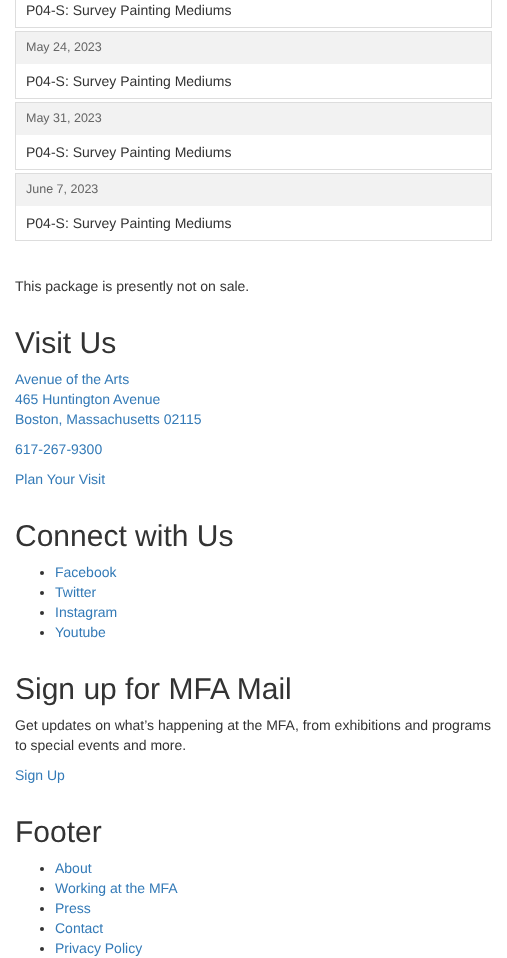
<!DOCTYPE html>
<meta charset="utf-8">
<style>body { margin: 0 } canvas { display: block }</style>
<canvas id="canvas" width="507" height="958"></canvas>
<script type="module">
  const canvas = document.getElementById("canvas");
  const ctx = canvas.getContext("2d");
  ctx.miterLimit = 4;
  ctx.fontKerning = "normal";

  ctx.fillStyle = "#ffffff";
  ctx.fillRect(0, 0, 507, 958);
  ctx.strokeStyle = "#dddddd";
  ctx.strokeRect(15.5, -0.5, 476, 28);
  ctx.font = "14px Liberation Sans";
  ctx.fillStyle = "#333333";
  ctx.fillText("P04-S: Survey Painting Mediums", 26, 15);
  ctx.strokeRect(15.5, 31.5, 476, 67);
  ctx.fillStyle = "#f2f2f2";
  ctx.fillRect(16, 32, 475, 32);
  ctx.font = "12.5px Liberation Sans";
  ctx.fillStyle = "#666666";
  ctx.fillText("May 24, 2023", 26, 51);
  ctx.font = "14px Liberation Sans";
  ctx.fillStyle = "#333333";
  ctx.fillText("P04-S: Survey Painting Mediums", 26, 86);
  ctx.strokeRect(15.5, 102.5, 476, 67);
  ctx.fillStyle = "#f2f2f2";
  ctx.fillRect(16, 103, 475, 32);
  ctx.font = "12.5px Liberation Sans";
  ctx.fillStyle = "#666666";
  ctx.fillText("May 31, 2023", 26, 122);
  ctx.font = "14px Liberation Sans";
  ctx.fillStyle = "#333333";
  ctx.fillText("P04-S: Survey Painting Mediums", 26, 157);
  ctx.strokeRect(15.5, 173.5, 476, 67);
  ctx.fillStyle = "#f2f2f2";
  ctx.fillRect(16, 174, 475, 32);
  ctx.font = "12.5px Liberation Sans";
  ctx.fillStyle = "#666666";
  ctx.fillText("June 7, 2023", 26, 193);
  ctx.font = "14px Liberation Sans";
  ctx.fillStyle = "#333333";
  ctx.fillText("P04-S: Survey Painting Mediums", 26, 228);
  ctx.fillText("This package is presently not on sale.", 15, 291);
  ctx.font = "30px Liberation Sans";
  ctx.fillText("Visit Us", 15, 353);
  ctx.font = "14px Liberation Sans";
  ctx.fillStyle = "#337ab7";
  ctx.fillText("Avenue of the Arts", 15, 384);
  ctx.fillText("465 Huntington Avenue", 15, 404);
  ctx.fillText("Boston, Massachusetts 02115", 15, 424);
  ctx.fillText("617-267-9300", 15, 454);
  ctx.fillText("Plan Your Visit", 15, 484);
  ctx.font = "30px Liberation Sans";
  ctx.fillStyle = "#333333";
  ctx.fillText("Connect with Us", 15, 546);
  ctx.beginPath();
  ctx.arc(42, 573, 2, 0, Math.PI * 2);
  ctx.fill();
  ctx.font = "14px Liberation Sans";
  ctx.fillStyle = "#337ab7";
  ctx.fillText("Facebook", 55, 577);
  ctx.fillStyle = "#333333";
  ctx.beginPath();
  ctx.arc(42, 593, 2, 0, Math.PI * 2);
  ctx.fill();
  ctx.fillStyle = "#337ab7";
  ctx.fillText("Twitter", 55, 597);
  ctx.fillStyle = "#333333";
  ctx.beginPath();
  ctx.arc(42, 613, 2, 0, Math.PI * 2);
  ctx.fill();
  ctx.fillStyle = "#337ab7";
  ctx.fillText("Instagram", 55, 617);
  ctx.fillStyle = "#333333";
  ctx.beginPath();
  ctx.arc(42, 633, 2, 0, Math.PI * 2);
  ctx.fill();
  ctx.fillStyle = "#337ab7";
  ctx.fillText("Youtube", 55, 637);
  ctx.font = "30px Liberation Sans";
  ctx.fillStyle = "#333333";
  ctx.fillText("Sign up for MFA Mail", 15, 699);
  ctx.font = "14px Liberation Sans";
  ctx.fillText("Get updates on what’s happening at the MFA, from exhibitions and programs", 15, 730);
  ctx.fillText("to special events and more.", 15, 750);
  ctx.fillStyle = "#337ab7";
  ctx.fillText("Sign Up", 15, 780);
  ctx.font = "30px Liberation Sans";
  ctx.fillStyle = "#333333";
  ctx.fillText("Footer", 15, 842);
  ctx.beginPath();
  ctx.arc(42, 869, 2, 0, Math.PI * 2);
  ctx.fill();
  ctx.font = "14px Liberation Sans";
  ctx.fillStyle = "#337ab7";
  ctx.fillText("About", 55, 873);
  ctx.fillStyle = "#333333";
  ctx.beginPath();
  ctx.arc(42, 889, 2, 0, Math.PI * 2);
  ctx.fill();
  ctx.fillStyle = "#337ab7";
  ctx.fillText("Working at the MFA", 55, 893);
  ctx.fillStyle = "#333333";
  ctx.beginPath();
  ctx.arc(42, 909, 2, 0, Math.PI * 2);
  ctx.fill();
  ctx.fillStyle = "#337ab7";
  ctx.fillText("Press", 55, 913);
  ctx.fillStyle = "#333333";
  ctx.beginPath();
  ctx.arc(42, 929, 2, 0, Math.PI * 2);
  ctx.fill();
  ctx.fillStyle = "#337ab7";
  ctx.fillText("Contact", 55, 933);
  ctx.fillStyle = "#333333";
  ctx.beginPath();
  ctx.arc(42, 949, 2, 0, Math.PI * 2);
  ctx.fill();
  ctx.fillStyle = "#337ab7";
  ctx.fillText("Privacy Policy", 55, 953);
</script>
